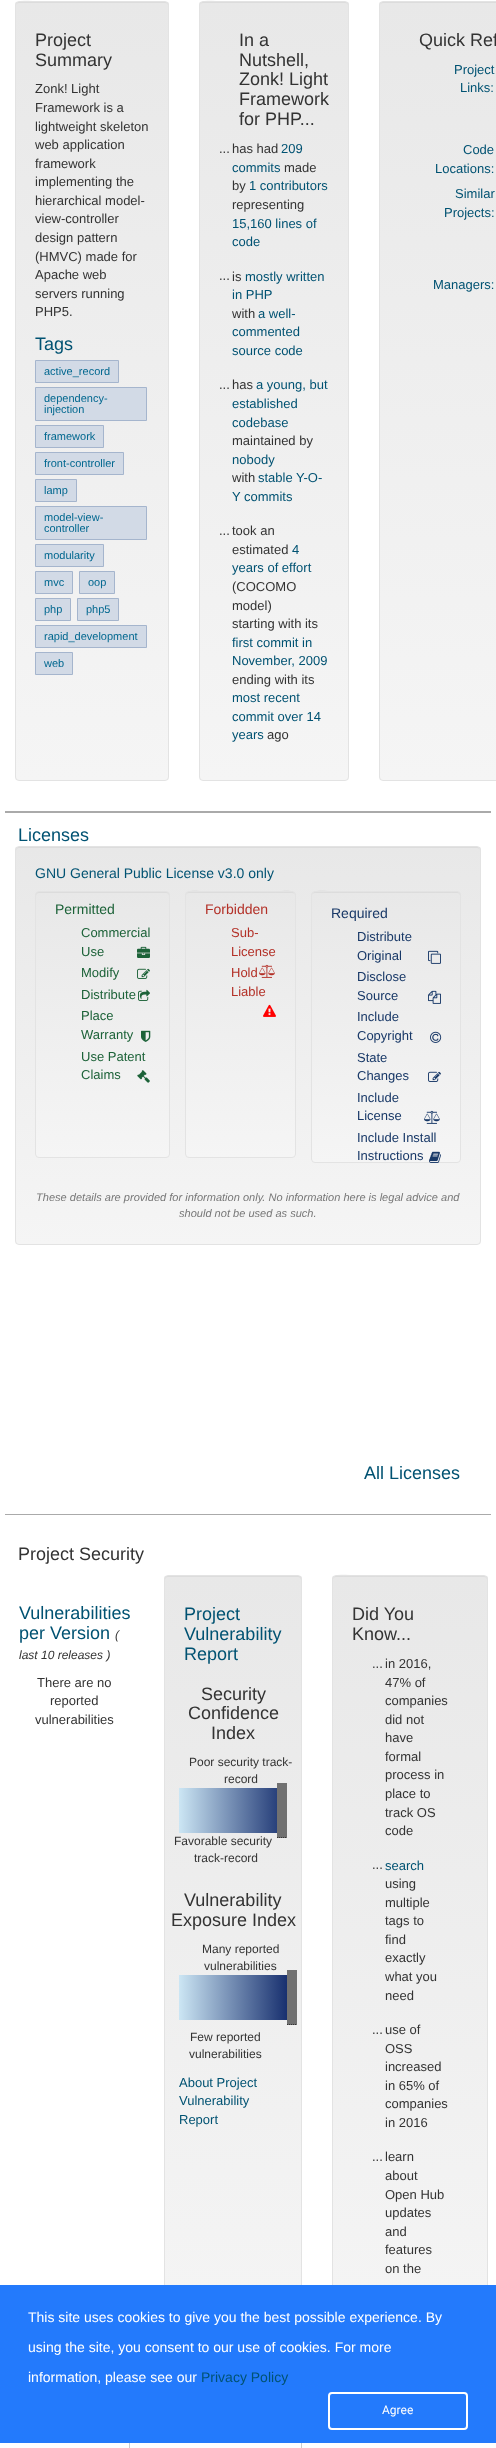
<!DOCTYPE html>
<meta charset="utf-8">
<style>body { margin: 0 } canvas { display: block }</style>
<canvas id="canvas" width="496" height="2448"></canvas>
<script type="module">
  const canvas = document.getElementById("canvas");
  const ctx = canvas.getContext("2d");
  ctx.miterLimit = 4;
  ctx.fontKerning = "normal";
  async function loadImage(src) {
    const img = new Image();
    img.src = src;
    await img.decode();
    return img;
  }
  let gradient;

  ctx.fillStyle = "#ffffff";
  ctx.fillRect(0, 0, 496, 2448);
  ctx.save();
  ctx.beginPath();
  ctx.roundRect(15, 1, 154, 780, 4);
  ctx.clip();
  gradient = ctx.createLinearGradient(92, 2, 92, 780);
  gradient.addColorStop(0, "#e8e8e8");
  gradient.addColorStop(1, "#f5f5f5");
  ctx.fillStyle = gradient;
  ctx.fillRect(15, 2, 154, 778);
  ctx.restore();
  ctx.fillStyle = "rgba(0, 0, 0, 0.05)";
  ctx.beginPath();
  ctx.moveTo(19, 3);
  ctx.lineTo(165, 3);
  ctx.bezierCurveTo(167, 3, 168, 4, 168, 6);
  ctx.bezierCurveTo(168, 4, 168, 3, 166, 2);
  ctx.lineTo(43, 2);
  ctx.bezierCurveTo(36, 2, 16, -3, 16, 6);
  ctx.bezierCurveTo(16, 4, 17, 3, 19, 3);
  ctx.closePath();
  ctx.fill();
  ctx.beginPath();
  ctx.roundRect(15.5, 1.5, 153, 779, 3.5);
  ctx.strokeStyle = "#e3e3e3";
  ctx.stroke();
  ctx.font = "18px Liberation Sans";
  ctx.fillStyle = "#333333";
  ctx.fillText("Project", 35, 46);
  ctx.fillText("Summary", 35, 66);
  ctx.font = "13px Liberation Sans";
  ctx.fillText("Zonk! Light", 35, 93);
  ctx.fillText("Framework is a", 35, 112);
  ctx.fillText("lightweight skeleton", 35, 131);
  ctx.fillText("web application", 35, 149);
  ctx.fillText("framework", 35, 168);
  ctx.fillText("implementing the", 35, 186);
  ctx.fillText("hierarchical model-", 35, 205);
  ctx.fillText("view-controller", 35, 223);
  ctx.fillText("design pattern", 35, 242);
  ctx.fillText("(HMVC) made for", 35, 261);
  ctx.fillText("Apache web", 35, 279);
  ctx.fillText("servers running", 35, 298);
  ctx.fillText("PHP5.", 35, 316);
  ctx.font = "18px Liberation Sans";
  ctx.fillStyle = "#005272";
  ctx.fillText("Tags", 35, 350);
  ctx.fillStyle = "#d2dae6";
  ctx.beginPath();
  ctx.rect(35.5, 360.5, 83, 22);
  ctx.fill();
  ctx.strokeStyle = "#a5b5cd";
  ctx.stroke();
  ctx.font = "11px Liberation Sans";
  ctx.fillStyle = "#00678f";
  ctx.fillText("active_record", 44, 375);
  ctx.fillStyle = "#d2dae6";
  ctx.beginPath();
  ctx.rect(35.5, 387.5, 111, 33);
  ctx.fill();
  ctx.stroke();
  ctx.fillStyle = "#00678f";
  ctx.fillText("dependency-", 44, 402);
  ctx.fillText("injection", 44, 413);
  ctx.fillStyle = "#d2dae6";
  ctx.beginPath();
  ctx.rect(35.5, 425.5, 68, 22);
  ctx.fill();
  ctx.stroke();
  ctx.fillStyle = "#00678f";
  ctx.fillText("framework", 44, 440);
  ctx.fillStyle = "#d2dae6";
  ctx.beginPath();
  ctx.rect(35.5, 452.5, 88, 22);
  ctx.fill();
  ctx.stroke();
  ctx.fillStyle = "#00678f";
  ctx.fillText("front-controller", 44, 467);
  ctx.fillStyle = "#d2dae6";
  ctx.beginPath();
  ctx.rect(35.5, 479.5, 41, 22);
  ctx.fill();
  ctx.stroke();
  ctx.fillStyle = "#00678f";
  ctx.fillText("lamp", 44, 494);
  ctx.fillStyle = "#d2dae6";
  ctx.beginPath();
  ctx.rect(35.5, 506.5, 111, 33);
  ctx.fill();
  ctx.stroke();
  ctx.fillStyle = "#00678f";
  ctx.fillText("model-view-", 44, 521);
  ctx.fillText("controller", 44, 532);
  ctx.fillStyle = "#d2dae6";
  ctx.beginPath();
  ctx.rect(35.5, 544.5, 68, 22);
  ctx.fill();
  ctx.stroke();
  ctx.fillStyle = "#00678f";
  ctx.fillText("modularity", 44, 559);
  ctx.fillStyle = "#d2dae6";
  ctx.beginPath();
  ctx.rect(35.5, 571.5, 37, 22);
  ctx.fill();
  ctx.stroke();
  ctx.fillStyle = "#00678f";
  ctx.fillText("mvc", 44, 586);
  ctx.fillStyle = "#d2dae6";
  ctx.beginPath();
  ctx.rect(79.5, 571.5, 35, 22);
  ctx.fill();
  ctx.stroke();
  ctx.fillStyle = "#00678f";
  ctx.fillText("oop", 88, 586);
  ctx.fillStyle = "#d2dae6";
  ctx.beginPath();
  ctx.rect(35.5, 598.5, 35, 22);
  ctx.fill();
  ctx.stroke();
  ctx.fillStyle = "#00678f";
  ctx.fillText("php", 44, 613);
  ctx.fillStyle = "#d2dae6";
  ctx.beginPath();
  ctx.rect(77.5, 598.5, 41, 22);
  ctx.fill();
  ctx.stroke();
  ctx.fillStyle = "#00678f";
  ctx.fillText("php5", 86, 613);
  ctx.fillStyle = "#d2dae6";
  ctx.beginPath();
  ctx.rect(35.5, 625.5, 111, 22);
  ctx.fill();
  ctx.stroke();
  ctx.fillStyle = "#00678f";
  ctx.fillText("rapid_development", 44, 640);
  ctx.fillStyle = "#d2dae6";
  ctx.beginPath();
  ctx.rect(35.5, 652.5, 37, 22);
  ctx.fill();
  ctx.stroke();
  ctx.fillStyle = "#00678f";
  ctx.fillText("web", 44, 667);
  ctx.save();
  ctx.beginPath();
  ctx.roundRect(199, 1, 150, 780, 4);
  ctx.clip();
  gradient = ctx.createLinearGradient(274, 2, 274, 780);
  gradient.addColorStop(0, "#e8e8e8");
  gradient.addColorStop(1, "#f5f5f5");
  ctx.fillStyle = gradient;
  ctx.fillRect(199, 2, 150, 778);
  ctx.restore();
  ctx.fillStyle = "rgba(0, 0, 0, 0.05)";
  ctx.beginPath();
  ctx.moveTo(203, 3);
  ctx.lineTo(345, 3);
  ctx.bezierCurveTo(347, 3, 348, 4, 348, 6);
  ctx.bezierCurveTo(348, 4, 348, 3, 346, 2);
  ctx.lineTo(227, 2);
  ctx.bezierCurveTo(219, 2, 200, -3, 200, 6);
  ctx.bezierCurveTo(200, 4, 201, 3, 203, 3);
  ctx.closePath();
  ctx.fill();
  ctx.beginPath();
  ctx.roundRect(199.5, 1.5, 149, 779, 3.5);
  ctx.strokeStyle = "#e3e3e3";
  ctx.stroke();
  ctx.font = "18px Liberation Sans";
  ctx.fillStyle = "#333333";
  ctx.fillText("In a", 239, 46);
  ctx.fillText("Nutshell,", 239, 66);
  ctx.fillText("Zonk! Light", 239, 85);
  ctx.fillText("Framework", 239, 105);
  ctx.fillText("for PHP...", 239, 125);
  ctx.font = "13px Liberation Sans";
  ctx.fillText("...", 219, 153);
  ctx.fillText("has had", 232, 153);
  ctx.fillStyle = "#005272";
  ctx.fillText("209", 281, 153);
  ctx.fillText("commits", 232, 172);
  ctx.fillStyle = "#333333";
  ctx.fillText("made", 284, 172);
  ctx.fillText("by", 232, 190);
  ctx.fillStyle = "#005272";
  ctx.fillText("1 contributors", 249, 190);
  ctx.fillStyle = "#333333";
  ctx.fillText("representing", 232, 209);
  ctx.fillStyle = "#005272";
  ctx.fillText("15,160 lines of", 232, 228);
  ctx.fillText("code", 232, 246);
  ctx.fillStyle = "#333333";
  ctx.fillText("...", 219, 280);
  ctx.fillText("is", 232, 281);
  ctx.fillStyle = "#005272";
  ctx.fillText("mostly written", 245, 281);
  ctx.fillText("in PHP", 232, 299);
  ctx.fillStyle = "#333333";
  ctx.fillText("with", 232, 318);
  ctx.fillStyle = "#005272";
  ctx.fillText("a well-", 258, 318);
  ctx.fillText("commented", 232, 336);
  ctx.fillText("source code", 232, 355);
  ctx.fillStyle = "#333333";
  ctx.fillText("...", 219, 389);
  ctx.fillText("has", 232, 389);
  ctx.fillStyle = "#005272";
  ctx.fillText("a young, but", 256, 389);
  ctx.fillText("established", 232, 408);
  ctx.fillText("codebase", 232, 427);
  ctx.fillStyle = "#333333";
  ctx.fillText("maintained by", 232, 445);
  ctx.fillStyle = "#005272";
  ctx.fillText("nobody", 232, 464);
  ctx.fillStyle = "#333333";
  ctx.fillText("with", 232, 482);
  ctx.fillStyle = "#005272";
  ctx.fillText("stable Y-O-", 258, 482);
  ctx.fillText("Y commits", 232, 501);
  ctx.fillStyle = "#333333";
  ctx.fillText("...", 219, 535);
  ctx.fillText("took an", 232, 535);
  ctx.fillText("estimated", 232, 554);
  ctx.fillStyle = "#005272";
  ctx.fillText("4", 292, 554);
  ctx.fillText("years of effort", 232, 572);
  ctx.fillStyle = "#333333";
  ctx.fillText("(COCOMO", 232, 591);
  ctx.fillText("model)", 232, 610);
  ctx.fillText("starting with its", 232, 628);
  ctx.fillStyle = "#005272";
  ctx.fillText("first commit in", 232, 647);
  ctx.fillText("November, 2009", 232, 665);
  ctx.fillStyle = "#333333";
  ctx.fillText("ending with its", 232, 684);
  ctx.fillStyle = "#005272";
  ctx.fillText("most recent", 232, 702);
  ctx.fillText("commit over 14", 232, 721);
  ctx.fillText("years", 232, 739);
  ctx.fillStyle = "#333333";
  ctx.fillText("ago", 267, 739);
  ctx.save();
  ctx.beginPath();
  ctx.roundRect(379, 1, 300, 780, 4);
  ctx.clip();
  gradient = ctx.createLinearGradient(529, 2, 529, 780);
  gradient.addColorStop(0, "#e8e8e8");
  gradient.addColorStop(1, "#f5f5f5");
  ctx.fillStyle = gradient;
  ctx.fillRect(379, 2, 117, 778);
  ctx.restore();
  ctx.fillStyle = "#dcdcdc";
  ctx.beginPath();
  ctx.moveTo(383, 3);
  ctx.lineTo(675, 3);
  ctx.bezierCurveTo(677, 3, 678, 4, 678, 6);
  ctx.lineTo(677, 3);
  ctx.lineTo(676, 2);
  ctx.lineTo(383, 2);
  ctx.bezierCurveTo(381, 2, 380, 4, 380, 6);
  ctx.bezierCurveTo(380, 4, 381, 3, 383, 3);
  ctx.closePath();
  ctx.fill();
  ctx.beginPath();
  ctx.roundRect(379.5, 1.5, 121, 779, 3.5);
  ctx.stroke();
  ctx.font = "18px Liberation Sans";
  ctx.fillStyle = "#333333";
  ctx.fillText("Quick Ref", 419, 46);
  ctx.font = "13px Liberation Sans";
  ctx.fillStyle = "#005272";
  ctx.fillText("Project", 454, 74);
  ctx.fillText("Links:", 460, 92);
  ctx.fillText("Code", 463, 154);
  ctx.fillText("Locations:", 435, 173);
  ctx.fillText("Similar", 455, 198);
  ctx.fillText("Projects:", 444, 217);
  ctx.fillText("Managers:", 433, 289);
  ctx.fillStyle = "#aaaaaa";
  ctx.fillRect(5, 811, 486, 2);
  ctx.font = "18px Liberation Sans";
  ctx.fillStyle = "#005272";
  ctx.fillText("Licenses", 18, 841);
  ctx.save();
  ctx.beginPath();
  ctx.roundRect(15, 846, 466, 399, 4);
  ctx.clip();
  gradient = ctx.createLinearGradient(248, 847, 248, 1244);
  gradient.addColorStop(0, "#e8e8e8");
  gradient.addColorStop(1, "#f5f5f5");
  ctx.fillStyle = gradient;
  ctx.fillRect(15, 847, 466, 397);
  ctx.restore();
  ctx.fillStyle = "#dcdcdc";
  ctx.beginPath();
  ctx.moveTo(19, 848);
  ctx.lineTo(477, 848);
  ctx.bezierCurveTo(479, 848, 480, 849, 480, 851);
  ctx.bezierCurveTo(480, 849, 479, 847, 477, 847);
  ctx.lineTo(18, 847);
  ctx.lineTo(16, 849);
  ctx.lineTo(16, 851);
  ctx.bezierCurveTo(16, 849, 17, 848, 19, 848);
  ctx.closePath();
  ctx.fill();
  ctx.beginPath();
  ctx.roundRect(15.5, 846.5, 465, 398, 3.5);
  ctx.stroke();
  ctx.font = "14px Liberation Sans";
  ctx.fillStyle = "#005272";
  ctx.fillText("GNU General Public License v3.0 only", 35, 878);
  ctx.save();
  ctx.beginPath();
  ctx.roundRect(35, 891, 135, 267, 4);
  ctx.clip();
  gradient = ctx.createLinearGradient(102, 892, 103, 1157);
  gradient.addColorStop(0, "#e8e8e8");
  gradient.addColorStop(1, "#f5f5f5");
  ctx.fillStyle = gradient;
  ctx.fillRect(35, 892, 135, 265);
  ctx.restore();
  ctx.fillStyle = "#dcdcdc";
  ctx.beginPath();
  ctx.moveTo(39, 893);
  ctx.lineTo(166, 893);
  ctx.bezierCurveTo(168, 893, 169, 894, 169, 896);
  ctx.bezierCurveTo(169, 894, 169, 892, 167, 892);
  ctx.lineTo(38, 892);
  ctx.bezierCurveTo(36, 892, 36, 894, 36, 896);
  ctx.bezierCurveTo(36, 894, 37, 893, 39, 893);
  ctx.closePath();
  ctx.fill();
  ctx.beginPath();
  ctx.roundRect(35.5, 891.5, 134, 266, 3.5);
  ctx.stroke();
  ctx.fillStyle = "#1c6238";
  ctx.fillText("Permitted", 55, 914);
  ctx.font = "13px Liberation Sans";
  ctx.fillText("Commercial", 81, 937);
  ctx.fillText("Use", 81, 956);
  ctx.drawImage(await loadImage("img1.png"), 137, 946, 13, 12);
  ctx.fillText("Modify", 81, 977);
  ctx.drawImage(await loadImage("img2.png"), 137, 968, 13, 11);
  ctx.fillText("Distribute", 81, 999);
  ctx.drawImage(await loadImage("img3.png"), 138, 989, 12, 12);
  ctx.fillText("Place", 81, 1020);
  ctx.fillText("Warranty", 81, 1039);
  ctx.drawImage(await loadImage("img4.png"), 141, 1030, 10, 12);
  ctx.fillText("Use Patent", 81, 1061);
  ctx.fillText("Claims", 81, 1079);
  ctx.drawImage(await loadImage("img5.png"), 137, 1070, 13, 13);
  ctx.save();
  ctx.beginPath();
  ctx.roundRect(185, 891, 111, 267, 4);
  ctx.clip();
  gradient = ctx.createLinearGradient(240, 892, 241, 1157);
  gradient.addColorStop(0, "#e8e8e8");
  gradient.addColorStop(1, "#f5f5f5");
  ctx.fillStyle = gradient;
  ctx.fillRect(185, 892, 111, 265);
  ctx.restore();
  ctx.fillStyle = "rgba(0, 0, 0, 0.05)";
  ctx.beginPath();
  ctx.moveTo(189, 893);
  ctx.lineTo(292, 893);
  ctx.bezierCurveTo(294, 893, 295, 894, 295, 896);
  ctx.bezierCurveTo(295, 887, 277, 892, 275, 892);
  ctx.lineTo(206, 892);
  ctx.bezierCurveTo(204, 892, 186, 887, 186, 896);
  ctx.bezierCurveTo(186, 894, 187, 893, 189, 893);
  ctx.closePath();
  ctx.fill();
  ctx.beginPath();
  ctx.roundRect(185.5, 891.5, 110, 266, 3.5);
  ctx.stroke();
  ctx.font = "14px Liberation Sans";
  ctx.fillStyle = "#b33027";
  ctx.fillText("Forbidden", 205, 914);
  ctx.font = "13px Liberation Sans";
  ctx.fillText("Sub-", 231, 937);
  ctx.fillText("License", 231, 956);
  ctx.drawImage(await loadImage("img6.png"), 259, 964, 16, 14);
  ctx.fillText("Hold", 231, 977);
  ctx.fillText("Liable", 231, 996);
  ctx.drawImage(await loadImage("img7.png"), 263, 1004, 13, 13);
  ctx.save();
  ctx.beginPath();
  ctx.roundRect(311, 891, 150, 272, 4);
  ctx.clip();
  gradient = ctx.createLinearGradient(386, 892, 386, 1162);
  gradient.addColorStop(0, "#e8e8e8");
  gradient.addColorStop(1, "#f5f5f5");
  ctx.fillStyle = gradient;
  ctx.fillRect(311, 892, 150, 270);
  ctx.restore();
  ctx.fillStyle = "rgba(0, 0, 0, 0.05)";
  ctx.beginPath();
  ctx.moveTo(315, 893);
  ctx.lineTo(457, 893);
  ctx.bezierCurveTo(459, 893, 460, 894, 460, 896);
  ctx.bezierCurveTo(460, 894, 460, 893, 458, 892);
  ctx.lineTo(339, 892);
  ctx.bezierCurveTo(331, 892, 312, 887, 312, 896);
  ctx.bezierCurveTo(312, 894, 313, 893, 315, 893);
  ctx.closePath();
  ctx.fill();
  ctx.beginPath();
  ctx.roundRect(311.5, 891.5, 149, 271, 3.5);
  ctx.stroke();
  ctx.font = "14px Liberation Sans";
  ctx.fillStyle = "#183867";
  ctx.fillText("Required", 331, 918);
  ctx.font = "13px Liberation Sans";
  ctx.fillText("Distribute", 357, 941);
  ctx.fillText("Original", 357, 960);
  ctx.drawImage(await loadImage("img8.png"), 428, 950, 13, 14);
  ctx.fillText("Disclose", 357, 981);
  ctx.fillText("Source", 357, 1000);
  ctx.drawImage(await loadImage("img9.png"), 428, 990, 13, 14);
  ctx.fillText("Include", 357, 1021);
  ctx.fillText("Copyright", 357, 1040);
  ctx.drawImage(await loadImage("img10.png"), 430, 1031, 12, 12);
  ctx.fillText("State", 357, 1062);
  ctx.fillText("Changes", 357, 1080);
  ctx.drawImage(await loadImage("img11.png"), 428, 1071, 13, 11);
  ctx.fillText("Include", 357, 1102);
  ctx.fillText("License", 357, 1120);
  ctx.drawImage(await loadImage("img12.png"), 424, 1110, 16, 14);
  ctx.fillText("Include Install", 357, 1142);
  ctx.fillText("Instructions", 357, 1160);
  ctx.drawImage(await loadImage("img13.png"), 429, 1151, 12, 12);
  ctx.font = "italic 11.05px Liberation Sans";
  ctx.fillStyle = "#777777";
  ctx.fillText("These details are provided for information only. No information here is legal advice and", 36, 1201);
  ctx.fillText("should not be used as such.", 179, 1217);
  ctx.font = "18px Liberation Sans";
  ctx.fillStyle = "#005272";
  ctx.fillText("All Licenses", 364, 1479);
  ctx.fillStyle = "#aaaaaa";
  ctx.fillRect(5, 1514, 486, 1);
  ctx.fillStyle = "#333333";
  ctx.fillText("Project Security", 18, 1560);
  ctx.fillStyle = "#005272";
  ctx.fillText("Vulnerabilities", 19, 1619);
  ctx.fillText("per Version", 19, 1639);
  ctx.font = "italic 12px Liberation Sans";
  ctx.fillStyle = "#333333";
  ctx.fillText("(", 115, 1639);
  ctx.fillText("last 10 releases )", 19, 1659);
  ctx.font = "13px Liberation Sans";
  ctx.fillText("There are no", 37, 1687);
  ctx.fillText("reported", 50, 1705);
  ctx.fillText("vulnerabilities", 35, 1724);
  ctx.save();
  ctx.beginPath();
  ctx.roundRect(164, 1575, 138, 776, 4);
  ctx.clip();
  gradient = ctx.createLinearGradient(233, 1576, 233, 2350);
  gradient.addColorStop(0, "#e8e8e8");
  gradient.addColorStop(1, "#f5f5f5");
  ctx.fillStyle = gradient;
  ctx.fillRect(164, 1576, 138, 709);
  ctx.restore();
  ctx.fillStyle = "#dcdcdc";
  ctx.beginPath();
  ctx.moveTo(168, 1577);
  ctx.lineTo(298, 1577);
  ctx.bezierCurveTo(300, 1577, 301, 1578, 301, 1580);
  ctx.bezierCurveTo(301, 1578, 301, 1576, 299, 1576);
  ctx.lineTo(167, 1576);
  ctx.bezierCurveTo(165, 1576, 165, 1578, 165, 1580);
  ctx.bezierCurveTo(165, 1578, 166, 1577, 168, 1577);
  ctx.closePath();
  ctx.fill();
  ctx.beginPath();
  ctx.roundRect(164.5, 1575.5, 137, 775, 3.5);
  ctx.stroke();
  ctx.font = "18px Liberation Sans";
  ctx.fillStyle = "#005272";
  ctx.fillText("Project", 184, 1620);
  ctx.fillText("Vulnerability", 184, 1640);
  ctx.fillText("Report", 184, 1660);
  ctx.fillStyle = "#333333";
  ctx.fillText("Security", 201, 1700);
  ctx.fillText("Confidence", 188, 1719);
  ctx.fillText("Index", 211, 1739);
  ctx.font = "12px Liberation Sans";
  ctx.fillText("Poor security track-", 189, 1766);
  ctx.fillText("record", 224, 1783);
  gradient = ctx.createLinearGradient(179, 1811, 287, 1811);
  gradient.addColorStop(0, "#cce6f4");
  gradient.addColorStop(1, "#18306f");
  ctx.fillStyle = gradient;
  ctx.fillRect(179, 1788, 98, 45);
  ctx.fillStyle = "#717171";
  ctx.fillRect(277, 1783, 10, 55);
  ctx.beginPath();
  ctx.moveTo(277, 1837.5);
  ctx.lineTo(287, 1837.5);
  ctx.strokeStyle = "#333333";
  ctx.setLineDash([1, 1]);
  ctx.stroke();
  ctx.fillStyle = "#333333";
  ctx.fillText("Favorable security", 174, 1845);
  ctx.fillText("track-record", 194, 1862);
  ctx.font = "18px Liberation Sans";
  ctx.fillText("Vulnerability", 184, 1906);
  ctx.fillText("Exposure Index", 171, 1926);
  ctx.font = "12px Liberation Sans";
  ctx.fillText("Many reported", 202, 1953);
  ctx.fillText("vulnerabilities", 204, 1970);
  gradient = ctx.createLinearGradient(179, 1998, 287, 1998);
  gradient.addColorStop(0, "#cce6f4");
  gradient.addColorStop(1, "#18306f");
  ctx.fillStyle = gradient;
  ctx.fillRect(179, 1975, 108, 45);
  ctx.fillStyle = "#717171";
  ctx.fillRect(287, 1970, 10, 55);
  ctx.beginPath();
  ctx.moveTo(287, 2024.5);
  ctx.lineTo(297, 2024.5);
  ctx.stroke();
  ctx.fillStyle = "#333333";
  ctx.fillText("Few reported", 190, 2041);
  ctx.fillText("vulnerabilities", 189, 2058);
  ctx.font = "13px Liberation Sans";
  ctx.fillStyle = "#005272";
  ctx.fillText("About Project", 179, 2087);
  ctx.fillText("Vulnerability", 179, 2105);
  ctx.fillText("Report", 179, 2124);
  ctx.save();
  ctx.beginPath();
  ctx.roundRect(332, 1575, 156, 776, 4);
  ctx.clip();
  gradient = ctx.createLinearGradient(410, 1576, 410, 2350);
  gradient.addColorStop(0, "#e8e8e8");
  gradient.addColorStop(1, "#f5f5f5");
  ctx.fillStyle = gradient;
  ctx.fillRect(332, 1576, 156, 709);
  ctx.restore();
  ctx.fillStyle = "rgba(0, 0, 0, 0.05)";
  ctx.beginPath();
  ctx.moveTo(336, 1577);
  ctx.lineTo(484, 1577);
  ctx.bezierCurveTo(486, 1577, 487, 1578, 487, 1580);
  ctx.bezierCurveTo(487, 1578, 487, 1577, 485, 1576);
  ctx.lineTo(361, 1576);
  ctx.bezierCurveTo(353, 1576, 333, 1571, 333, 1580);
  ctx.bezierCurveTo(333, 1578, 334, 1577, 336, 1577);
  ctx.closePath();
  ctx.fill();
  ctx.beginPath();
  ctx.roundRect(332.5, 1575.5, 155, 775, 3.5);
  ctx.strokeStyle = "#e3e3e3";
  ctx.setLineDash([]);
  ctx.stroke();
  ctx.font = "18px Liberation Sans";
  ctx.fillStyle = "#333333";
  ctx.fillText("Did You", 352, 1620);
  ctx.fillText("Know...", 352, 1640);
  ctx.font = "13px Liberation Sans";
  ctx.fillText("...", 372, 1668);
  ctx.fillText("in 2016,", 385, 1668);
  ctx.fillText("47% of", 385, 1687);
  ctx.fillText("companies", 385, 1705);
  ctx.fillText("did not", 385, 1724);
  ctx.fillText("have", 385, 1742);
  ctx.fillText("formal", 385, 1761);
  ctx.fillText("process in", 385, 1779);
  ctx.fillText("place to", 385, 1798);
  ctx.fillText("track OS", 385, 1817);
  ctx.fillText("code", 385, 1835);
  ctx.fillText("...", 372, 1869);
  ctx.fillStyle = "#005272";
  ctx.fillText("search", 385, 1870);
  ctx.fillStyle = "#333333";
  ctx.fillText("using", 385, 1888);
  ctx.fillText("multiple", 385, 1907);
  ctx.fillText("tags to", 385, 1925);
  ctx.fillText("find", 385, 1944);
  ctx.fillText("exactly", 385, 1962);
  ctx.fillText("what you", 385, 1981);
  ctx.fillText("need", 385, 2000);
  ctx.fillText("...", 372, 2034);
  ctx.fillText("use of", 385, 2034);
  ctx.fillText("OSS", 385, 2053);
  ctx.fillText("increased", 385, 2071);
  ctx.fillText("in 65% of", 385, 2090);
  ctx.fillText("companies", 385, 2108);
  ctx.fillText("in 2016", 385, 2127);
  ctx.fillText("...", 372, 2161);
  ctx.fillText("learn", 385, 2161);
  ctx.fillText("about", 385, 2180);
  ctx.fillText("Open Hub", 385, 2199);
  ctx.fillText("updates", 385, 2217);
  ctx.fillText("and", 385, 2236);
  ctx.fillText("features", 385, 2254);
  ctx.fillText("on the", 385, 2273);
  ctx.fillStyle = "#cccccc";
  ctx.fillRect(129, 2443, 1, 5);
  ctx.fillRect(301, 2443, 1, 5);
  ctx.fillStyle = "#237afc";
  ctx.fillRect(0, 2285, 496, 158);
  ctx.font = "14px Liberation Sans";
  ctx.fillStyle = "#ffffff";
  ctx.fillText("This site uses cookies to give you the best possible experience. By", 28, 2322);
  ctx.fillText("using the site, you consent to our use of cookies. For more", 28, 2352);
  ctx.fillText("information, please see our", 28, 2382);
  ctx.fillStyle = "#005272";
  ctx.fillText("Privacy Policy", 201, 2382);
  ctx.beginPath();
  ctx.roundRect(329, 2393, 138, 36, 3);
  ctx.strokeStyle = "#ffffff";
  ctx.lineWidth = 2;
  ctx.stroke();
  ctx.font = "12px Roboto";
  ctx.fillStyle = "#ffffff";
  ctx.fillText("Agree", 382, 2414);
</script>
